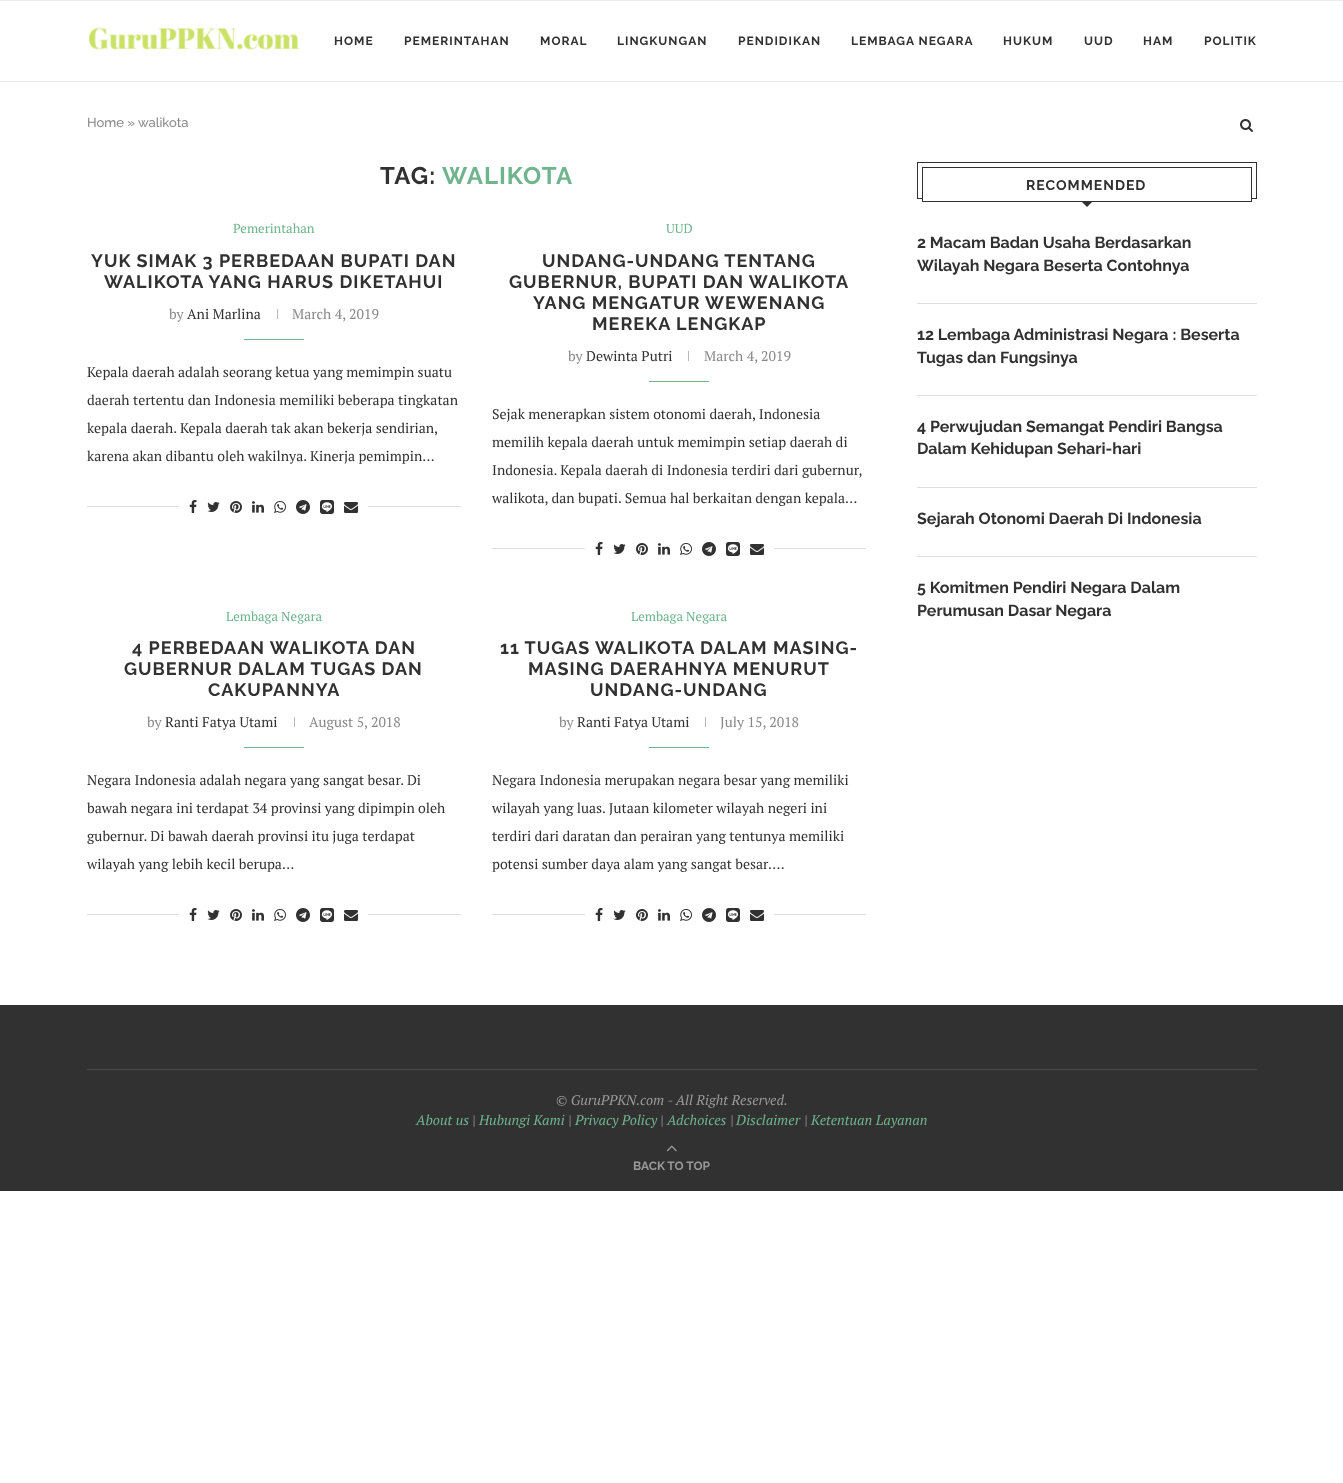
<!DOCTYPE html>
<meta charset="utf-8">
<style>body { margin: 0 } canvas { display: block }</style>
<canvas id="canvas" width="1343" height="1483"></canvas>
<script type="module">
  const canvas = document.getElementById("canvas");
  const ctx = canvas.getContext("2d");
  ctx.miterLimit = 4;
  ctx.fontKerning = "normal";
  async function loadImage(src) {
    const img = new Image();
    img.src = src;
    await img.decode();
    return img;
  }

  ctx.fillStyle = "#ffffff";
  ctx.fillRect(0, 0, 1343, 1483);
  ctx.fillStyle = "#ececec";
  ctx.fillRect(0, 0, 1343, 1);
  ctx.fillRect(0, 81, 1343, 1);
  ctx.drawImage(await loadImage("img1.png"), 88, 27, 212, 23);
  ctx.letterSpacing = "1px";
  ctx.font = "bold 12px Raleway";
  ctx.fillStyle = "#313131";
  ctx.fillText("HOME", 334, 45);
  ctx.fillText("PEMERINTAHAN", 404, 45);
  ctx.fillText("MORAL", 540, 45);
  ctx.fillText("LINGKUNGAN", 617, 45);
  ctx.fillText("PENDIDIKAN", 738, 45);
  ctx.fillText("LEMBAGA NEGARA", 851, 45);
  ctx.fillText("HUKUM", 1003, 45);
  ctx.fillText("UUD", 1084, 45);
  ctx.fillText("HAM", 1143, 45);
  ctx.fillText("POLITIK", 1204, 45);
  ctx.drawImage(await loadImage("img2.png"), 1240, 119, 13, 13);
  ctx.letterSpacing = "0px";
  ctx.font = "500 13px Raleway";
  ctx.fillStyle = "#888888";
  ctx.fillText("Home » walikota", 87, 127);
  ctx.letterSpacing = "1px";
  ctx.font = "bold 24px Raleway";
  ctx.fillStyle = "#313131";
  ctx.fillText("TAG:", 380, 184);
  ctx.fillStyle = "#6eb48c";
  ctx.fillText("WALIKOTA", 442, 184);
  ctx.letterSpacing = "0px";
  ctx.font = "13px PT Serif";
  ctx.fillText("Pemerintahan", 233, 233);
  ctx.letterSpacing = "1px";
  ctx.font = "bold 18px Raleway";
  ctx.fillStyle = "#313131";
  ctx.fillText("YUK SIMAK 3 PERBEDAAN BUPATI DAN", 91, 267);
  ctx.fillText("WALIKOTA YANG HARUS DIKETAHUI", 104, 288);
  ctx.letterSpacing = "0px";
  ctx.font = "14px PT Serif";
  ctx.fillStyle = "#888888";
  ctx.fillText("by", 169, 319);
  ctx.fillStyle = "#313131";
  ctx.fillText("Ani Marlina", 187, 319);
  ctx.fillStyle = "#b8b8b8";
  ctx.fillRect(277, 309, 1, 10);
  ctx.fillStyle = "#888888";
  ctx.fillText("March 4, 2019", 292, 319);
  ctx.fillStyle = "#6eb48c";
  ctx.fillRect(244, 339, 60, 1);
  ctx.fillStyle = "#313131";
  ctx.fillText("Kepala daerah adalah seorang ketua yang memimpin suatu", 87, 377);
  ctx.fillText("daerah tertentu dan Indonesia memiliki beberapa tingkatan", 87, 405);
  ctx.fillText("kepala daerah. Kepala daerah tak akan bekerja sendirian,", 87, 433);
  ctx.fillText("karena akan dibantu oleh wakilnya. Kinerja pemimpin…", 87, 461);
  ctx.fillStyle = "#dedede";
  ctx.fillRect(87, 506, 374, 1);
  ctx.fillStyle = "#ffffff";
  ctx.fillRect(179, 506, 189, 1);
  ctx.drawImage(await loadImage("img3.png"), 189, 500, 8, 13);
  ctx.drawImage(await loadImage("img4.png"), 207, 502, 13, 10);
  ctx.drawImage(await loadImage("img5.png"), 230, 501, 12, 12);
  ctx.drawImage(await loadImage("img6.png"), 252, 501, 12, 12);
  ctx.drawImage(await loadImage("img7.png"), 274, 501, 12, 12);
  ctx.drawImage(await loadImage("img8.png"), 296, 500, 14, 14);
  ctx.drawImage(await loadImage("img9.png"), 320, 500, 14, 14);
  ctx.drawImage(await loadImage("img10.png"), 344, 502, 14, 11);
  ctx.font = "13px PT Serif";
  ctx.fillStyle = "#6eb48c";
  ctx.fillText("UUD", 666, 233);
  ctx.letterSpacing = "1px";
  ctx.font = "bold 18px Raleway";
  ctx.fillStyle = "#313131";
  ctx.fillText("UNDANG-UNDANG TENTANG", 542, 267);
  ctx.fillText("GUBERNUR, BUPATI DAN WALIKOTA", 509, 288);
  ctx.fillText("YANG MENGATUR WEWENANG", 533, 309);
  ctx.fillText("MEREKA LENGKAP", 592, 330);
  ctx.letterSpacing = "0px";
  ctx.font = "14px PT Serif";
  ctx.fillStyle = "#888888";
  ctx.fillText("by", 568, 361);
  ctx.fillStyle = "#313131";
  ctx.fillText("Dewinta Putri", 586, 361);
  ctx.fillStyle = "#b8b8b8";
  ctx.fillRect(688, 351, 1, 10);
  ctx.fillStyle = "#888888";
  ctx.fillText("March 4, 2019", 704, 361);
  ctx.fillStyle = "#6eb48c";
  ctx.fillRect(649, 381, 60, 1);
  ctx.fillStyle = "#313131";
  ctx.fillText("Sejak menerapkan sistem otonomi daerah, Indonesia", 492, 419);
  ctx.fillText("memilih kepala daerah untuk memimpin setiap daerah di", 492, 447);
  ctx.fillText("Indonesia. Kepala daerah di Indonesia terdiri dari gubernur,", 492, 475);
  ctx.fillText("walikota, dan bupati. Semua hal berkaitan dengan kepala…", 492, 503);
  ctx.fillStyle = "#dedede";
  ctx.fillRect(492, 548, 374, 1);
  ctx.fillStyle = "#ffffff";
  ctx.fillRect(585, 548, 189, 1);
  ctx.drawImage(await loadImage("img3.png"), 595, 542, 8, 13);
  ctx.drawImage(await loadImage("img4.png"), 613, 544, 13, 10);
  ctx.drawImage(await loadImage("img5.png"), 636, 543, 12, 12);
  ctx.drawImage(await loadImage("img6.png"), 658, 543, 12, 12);
  ctx.drawImage(await loadImage("img7.png"), 680, 543, 12, 12);
  ctx.drawImage(await loadImage("img8.png"), 702, 542, 14, 14);
  ctx.drawImage(await loadImage("img9.png"), 726, 542, 14, 14);
  ctx.drawImage(await loadImage("img10.png"), 750, 544, 14, 11);
  ctx.font = "13px PT Serif";
  ctx.fillStyle = "#6eb48c";
  ctx.fillText("Lembaga Negara", 226, 621);
  ctx.letterSpacing = "1px";
  ctx.font = "bold 18px Raleway";
  ctx.fillStyle = "#313131";
  ctx.fillText("4 PERBEDAAN WALIKOTA DAN", 132, 654);
  ctx.fillText("GUBERNUR DALAM TUGAS DAN", 124, 675);
  ctx.fillText("CAKUPANNYA", 208, 696);
  ctx.letterSpacing = "0px";
  ctx.font = "14px PT Serif";
  ctx.fillStyle = "#888888";
  ctx.fillText("by", 147, 727);
  ctx.fillStyle = "#313131";
  ctx.fillText("Ranti Fatya Utami", 165, 727);
  ctx.fillStyle = "#b8b8b8";
  ctx.fillRect(294, 717, 1, 10);
  ctx.fillStyle = "#888888";
  ctx.fillText("August 5, 2018", 309, 727);
  ctx.fillStyle = "#6eb48c";
  ctx.fillRect(244, 747, 60, 1);
  ctx.fillStyle = "#313131";
  ctx.fillText("Negara Indonesia adalah negara yang sangat besar. Di", 87, 785);
  ctx.fillText("bawah negara ini terdapat 34 provinsi yang dipimpin oleh", 87, 813);
  ctx.fillText("gubernur. Di bawah daerah provinsi itu juga terdapat", 87, 841);
  ctx.fillText("wilayah yang lebih kecil berupa…", 87, 869);
  ctx.fillStyle = "#dedede";
  ctx.fillRect(87, 914, 374, 1);
  ctx.fillStyle = "#ffffff";
  ctx.fillRect(179, 914, 189, 1);
  ctx.drawImage(await loadImage("img3.png"), 189, 908, 8, 13);
  ctx.drawImage(await loadImage("img4.png"), 207, 910, 13, 10);
  ctx.drawImage(await loadImage("img5.png"), 230, 909, 12, 12);
  ctx.drawImage(await loadImage("img6.png"), 252, 909, 12, 12);
  ctx.drawImage(await loadImage("img7.png"), 274, 909, 12, 12);
  ctx.drawImage(await loadImage("img8.png"), 296, 908, 14, 14);
  ctx.drawImage(await loadImage("img9.png"), 320, 908, 14, 14);
  ctx.drawImage(await loadImage("img10.png"), 344, 910, 14, 11);
  ctx.font = "13px PT Serif";
  ctx.fillStyle = "#6eb48c";
  ctx.fillText("Lembaga Negara", 631, 621);
  ctx.letterSpacing = "1px";
  ctx.font = "bold 18px Raleway";
  ctx.fillStyle = "#313131";
  ctx.fillText("11 TUGAS WALIKOTA DALAM MASING-", 500, 654);
  ctx.fillText("MASING DAERAHNYA MENURUT", 528, 675);
  ctx.fillText("UNDANG-UNDANG", 590, 696);
  ctx.letterSpacing = "0px";
  ctx.font = "14px PT Serif";
  ctx.fillStyle = "#888888";
  ctx.fillText("by", 559, 727);
  ctx.fillStyle = "#313131";
  ctx.fillText("Ranti Fatya Utami", 577, 727);
  ctx.fillStyle = "#b8b8b8";
  ctx.fillRect(705, 717, 1, 10);
  ctx.fillStyle = "#888888";
  ctx.fillText("July 15, 2018", 720, 727);
  ctx.fillStyle = "#6eb48c";
  ctx.fillRect(649, 747, 60, 1);
  ctx.fillStyle = "#313131";
  ctx.fillText("Negara Indonesia merupakan negara besar yang memiliki", 492, 785);
  ctx.fillText("wilayah yang luas. Jutaan kilometer wilayah negeri ini", 492, 813);
  ctx.fillText("terdiri dari daratan dan perairan yang tentunya memiliki", 492, 841);
  ctx.fillText("potensi sumber daya alam yang sangat besar.…", 492, 869);
  ctx.fillStyle = "#dedede";
  ctx.fillRect(492, 914, 374, 1);
  ctx.fillStyle = "#ffffff";
  ctx.fillRect(585, 914, 189, 1);
  ctx.drawImage(await loadImage("img3.png"), 595, 908, 8, 13);
  ctx.drawImage(await loadImage("img4.png"), 613, 910, 13, 10);
  ctx.drawImage(await loadImage("img5.png"), 636, 909, 12, 12);
  ctx.drawImage(await loadImage("img6.png"), 658, 909, 12, 12);
  ctx.drawImage(await loadImage("img7.png"), 680, 909, 12, 12);
  ctx.drawImage(await loadImage("img8.png"), 702, 908, 14, 14);
  ctx.drawImage(await loadImage("img9.png"), 726, 908, 14, 14);
  ctx.drawImage(await loadImage("img10.png"), 750, 910, 14, 11);
  ctx.strokeStyle = "#313131";
  ctx.strokeRect(917.5, 162.5, 339, 36);
  ctx.fillRect(923, 198, 328, 1);
  ctx.strokeRect(922.5, 167.5, 329, 34);
  ctx.letterSpacing = "1px";
  ctx.font = "bold 14px Raleway";
  ctx.fillStyle = "#313131";
  ctx.fillText("RECOMMENDED", 1026, 190);
  ctx.beginPath();
  ctx.moveTo(1081, 201);
  ctx.lineTo(1093, 201);
  ctx.lineTo(1087, 207);
  ctx.closePath();
  ctx.fill();
  ctx.fillStyle = "#dedede";
  ctx.fillRect(917, 303, 340, 1);
  ctx.letterSpacing = "0px";
  ctx.font = "bold 16px Raleway";
  ctx.fillStyle = "#313131";
  ctx.fillText("2 Macam Badan Usaha Berdasarkan", 917, 248);
  ctx.fillText("Wilayah Negara Beserta Contohnya", 917, 271);
  ctx.fillStyle = "#dedede";
  ctx.fillRect(917, 395, 340, 1);
  ctx.fillStyle = "#313131";
  ctx.fillText("12 Lembaga Administrasi Negara : Beserta", 917, 340);
  ctx.save();
  ctx.beginPath();
  ctx.rect(917, 324, 340, 51);
  ctx.clip();
  ctx.fillText("Tugas dan Fungsinya", 917, 363);
  ctx.restore();
  ctx.fillStyle = "#dedede";
  ctx.fillRect(917, 487, 340, 1);
  ctx.save();
  ctx.beginPath();
  ctx.rect(917, 416, 340, 51);
  ctx.clip();
  ctx.fillStyle = "#313131";
  ctx.fillText("4 Perwujudan Semangat Pendiri Bangsa", 917, 432);
  ctx.restore();
  ctx.fillStyle = "#313131";
  ctx.fillText("Dalam Kehidupan Sehari-hari", 917, 454);
  ctx.fillStyle = "#dedede";
  ctx.fillRect(917, 556, 340, 1);
  ctx.fillStyle = "#313131";
  ctx.fillText("Sejarah Otonomi Daerah Di Indonesia", 917, 524);
  ctx.fillText("5 Komitmen Pendiri Negara Dalam", 917, 593);
  ctx.fillText("Perumusan Dasar Negara", 917, 616);
  ctx.fillRect(0, 1005, 1343, 186);
  ctx.fillStyle = "#4a4a4a";
  ctx.fillRect(87, 1069, 1170, 1);
  ctx.font = "italic 14px PT Serif";
  ctx.fillStyle = "#999999";
  ctx.fillText("© GuruPPKN.com - All Right Reserved.", 556, 1105);
  ctx.fillStyle = "#6eb48c";
  ctx.fillText("About us", 416, 1125);
  ctx.fillStyle = "#999999";
  ctx.fillText("|", 472, 1125);
  ctx.fillStyle = "#6eb48c";
  ctx.fillText("Hubungi Kami", 479, 1125);
  ctx.fillStyle = "#999999";
  ctx.fillText("|", 568, 1125);
  ctx.fillStyle = "#6eb48c";
  ctx.fillText("Privacy Policy", 575, 1125);
  ctx.fillStyle = "#999999";
  ctx.fillText("|", 660, 1125);
  ctx.fillStyle = "#6eb48c";
  ctx.fillText("Adchoices", 667, 1125);
  ctx.fillStyle = "#999999";
  ctx.fillText("|", 730, 1125);
  ctx.fillStyle = "#6eb48c";
  ctx.fillText("Disclaimer", 736, 1125);
  ctx.fillStyle = "#999999";
  ctx.fillText("|", 804, 1125);
  ctx.fillStyle = "#6eb48c";
  ctx.fillText("Ketentuan Layanan", 811, 1125);
  ctx.drawImage(await loadImage("img11.png"), 666, 1145, 11, 7);
  ctx.font = "bold 12px Raleway";
  ctx.fillStyle = "#999999";
  ctx.fillText("BACK TO TOP", 633, 1170);
</script>
